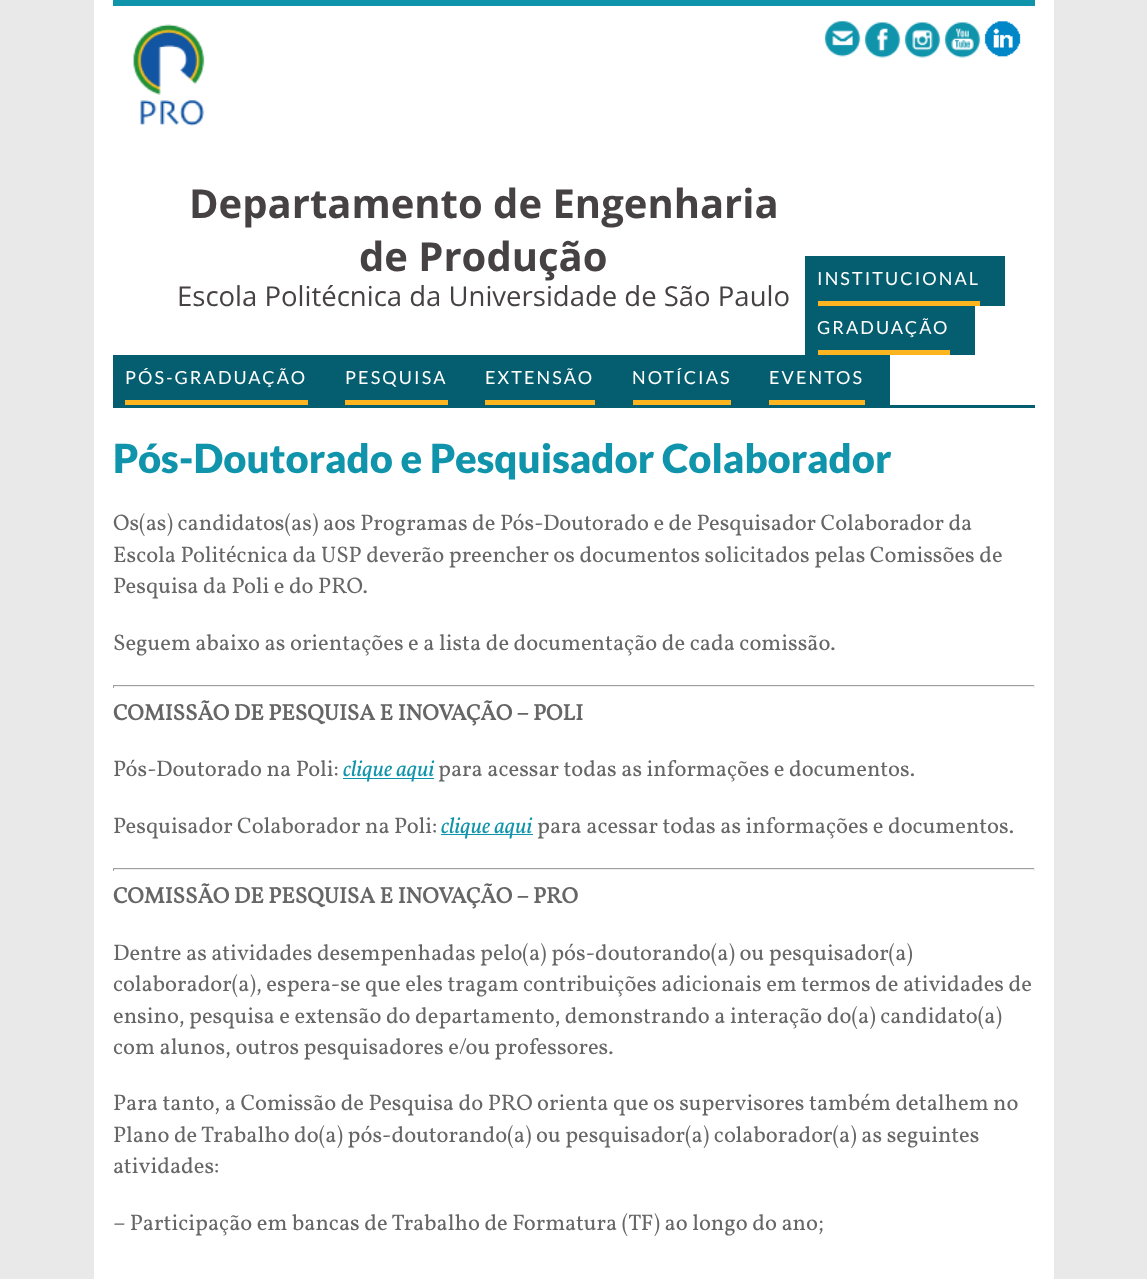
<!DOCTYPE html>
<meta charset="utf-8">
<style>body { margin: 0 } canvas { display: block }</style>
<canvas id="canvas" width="1147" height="1279"></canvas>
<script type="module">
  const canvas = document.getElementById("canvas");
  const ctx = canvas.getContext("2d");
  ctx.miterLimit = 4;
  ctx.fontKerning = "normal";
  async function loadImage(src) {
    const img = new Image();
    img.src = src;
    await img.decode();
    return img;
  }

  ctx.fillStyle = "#e9e9e9";
  ctx.fillRect(0, 0, 1147, 1279);
  ctx.fillStyle = "#ffffff";
  ctx.fillRect(94, 0, 960, 1279);
  ctx.fillStyle = "#1094ab";
  ctx.fillRect(113, 0, 922, 6);
  ctx.drawImage(await loadImage("img1.png"), 824, 20, 37, 37);
  ctx.drawImage(await loadImage("img2.png"), 864, 21, 37, 37);
  ctx.drawImage(await loadImage("img3.png"), 904, 21, 37, 37);
  ctx.drawImage(await loadImage("img4.png"), 944, 21, 37, 37);
  ctx.drawImage(await loadImage("img5.png"), 984, 21, 37, 36);
  ctx.drawImage(await loadImage("img6.png"), 133, 24, 72, 102);
  ctx.font = "bold 40px Open Sans";
  ctx.fillStyle = "#464243";
  ctx.fillText("Departamento de Engenharia", 189, 218);
  ctx.fillText("de Produção", 359, 271);
  ctx.font = "27.5px Open Sans";
  ctx.fillText("Escola Politécnica da Universidade de São Paulo", 177, 306);
  ctx.fillStyle = "#055e6f";
  ctx.fillRect(113, 405, 922, 3);
  ctx.fillRect(805, 256, 200, 50);
  ctx.fillStyle = "#fcb421";
  ctx.fillRect(818, 301, 162, 5);
  ctx.letterSpacing = "2.1px";
  ctx.font = "18px Lato";
  ctx.fillStyle = "#ffffff";
  ctx.fillText("INSTITUCIONAL", 817, 285);
  ctx.fillStyle = "#055e6f";
  ctx.fillRect(805, 306, 170, 49);
  ctx.fillStyle = "#fcb421";
  ctx.fillRect(818, 350, 132, 5);
  ctx.fillStyle = "#ffffff";
  ctx.fillText("GRADUAÇÃO", 817, 334);
  ctx.fillStyle = "#055e6f";
  ctx.fillRect(113, 355, 777, 50);
  ctx.fillStyle = "#fcb421";
  ctx.fillRect(125, 400, 183, 5);
  ctx.fillStyle = "#ffffff";
  ctx.fillText("PÓS-GRADUAÇÃO", 125, 384);
  ctx.fillStyle = "#fcb421";
  ctx.fillRect(345, 400, 103, 5);
  ctx.fillStyle = "#ffffff";
  ctx.fillText("PESQUISA", 345, 384);
  ctx.fillStyle = "#fcb421";
  ctx.fillRect(485, 400, 110, 5);
  ctx.fillStyle = "#ffffff";
  ctx.fillText("EXTENSÃO", 485, 384);
  ctx.fillStyle = "#fcb421";
  ctx.fillRect(633, 400, 98, 5);
  ctx.fillStyle = "#ffffff";
  ctx.fillText("NOTÍCIAS", 632, 384);
  ctx.fillStyle = "#fcb421";
  ctx.fillRect(769, 400, 96, 5);
  ctx.fillStyle = "#ffffff";
  ctx.fillText("EVENTOS", 769, 384);
  ctx.letterSpacing = "0px";
  ctx.font = "900 40px Lato";
  ctx.fillStyle = "#1094ab";
  ctx.fillText("Pós-Doutorado e Pesquisador Colaborador", 113, 473);
  ctx.font = "22.5px Vollkorn";
  ctx.fillStyle = "#666666";
  ctx.fillText("Os(as) candidatos(as) aos Programas de Pós-Doutorado e de Pesquisador Colaborador da", 113, 530);
  ctx.fillText("Escola Politécnica da USP deverão preencher os documentos solicitados pelas Comissões de", 113, 562);
  ctx.fillText("Pesquisa da Poli e do PRO.", 113, 593);
  ctx.fillText("Seguem abaixo as orientações e a lista de documentação de cada comissão.", 113, 650);
  ctx.fillStyle = "#9f9f9f";
  ctx.fillRect(113, 685, 922, 1);
  ctx.fillStyle = "#eeeeee";
  ctx.fillRect(1034, 685, 1, 3);
  ctx.fillRect(113, 686, 922, 1);
  ctx.fillStyle = "#9f9f9f";
  ctx.fillRect(113, 685, 1, 3);
  ctx.font = "bold 22.5px Vollkorn";
  ctx.fillStyle = "#666666";
  ctx.fillText("COMISSÃO DE PESQUISA E INOVAÇÃO – POLI", 113, 720);
  ctx.font = "22.5px Vollkorn";
  ctx.fillText("Pós-Doutorado na Poli:", 113, 776);
  ctx.fillStyle = "#1094ab";
  ctx.fillRect(343, 778, 91, 1);
  ctx.font = "italic 22.5px Vollkorn";
  ctx.fillText("clique aqui", 343, 776);
  ctx.font = "22.5px Vollkorn";
  ctx.fillStyle = "#666666";
  ctx.fillText("para acessar todas as informações e documentos.", 438, 776);
  ctx.fillText("Pesquisador Colaborador na Poli:", 113, 833);
  ctx.fillStyle = "#1094ab";
  ctx.fillRect(441, 834, 92, 1);
  ctx.font = "italic 22.5px Vollkorn";
  ctx.fillText("clique aqui", 441, 833);
  ctx.font = "22.5px Vollkorn";
  ctx.fillStyle = "#666666";
  ctx.fillText("para acessar todas as informações e documentos.", 537, 833);
  ctx.fillStyle = "#9f9f9f";
  ctx.fillRect(113, 868, 922, 1);
  ctx.fillStyle = "#eeeeee";
  ctx.fillRect(1034, 868, 1, 3);
  ctx.fillRect(113, 869, 922, 1);
  ctx.fillStyle = "#9f9f9f";
  ctx.fillRect(113, 868, 1, 3);
  ctx.font = "bold 22.5px Vollkorn";
  ctx.fillStyle = "#666666";
  ctx.fillText("COMISSÃO DE PESQUISA E INOVAÇÃO – PRO", 113, 903);
  ctx.font = "22.5px Vollkorn";
  ctx.fillText("Dentre as atividades desempenhadas pelo(a) pós-doutorando(a) ou pesquisador(a)", 113, 960);
  ctx.fillText("colaborador(a), espera-se que eles tragam contribuições adicionais em termos de atividades de", 113, 991);
  ctx.fillText("ensino, pesquisa e extensão do departamento, demonstrando a interação do(a) candidato(a)", 113, 1023);
  ctx.fillText("com alunos, outros pesquisadores e/ou professores.", 113, 1054);
  ctx.fillText("Para tanto, a Comissão de Pesquisa do PRO orienta que os supervisores também detalhem no", 113, 1110);
  ctx.fillText("Plano de Trabalho do(a) pós-doutorando(a) ou pesquisador(a) colaborador(a) as seguintes", 113, 1142);
  ctx.fillText("atividades:", 113, 1173);
  ctx.fillText("– Participação em bancas de Trabalho de Formatura (TF) ao longo do ano;", 113, 1230);
</script>
